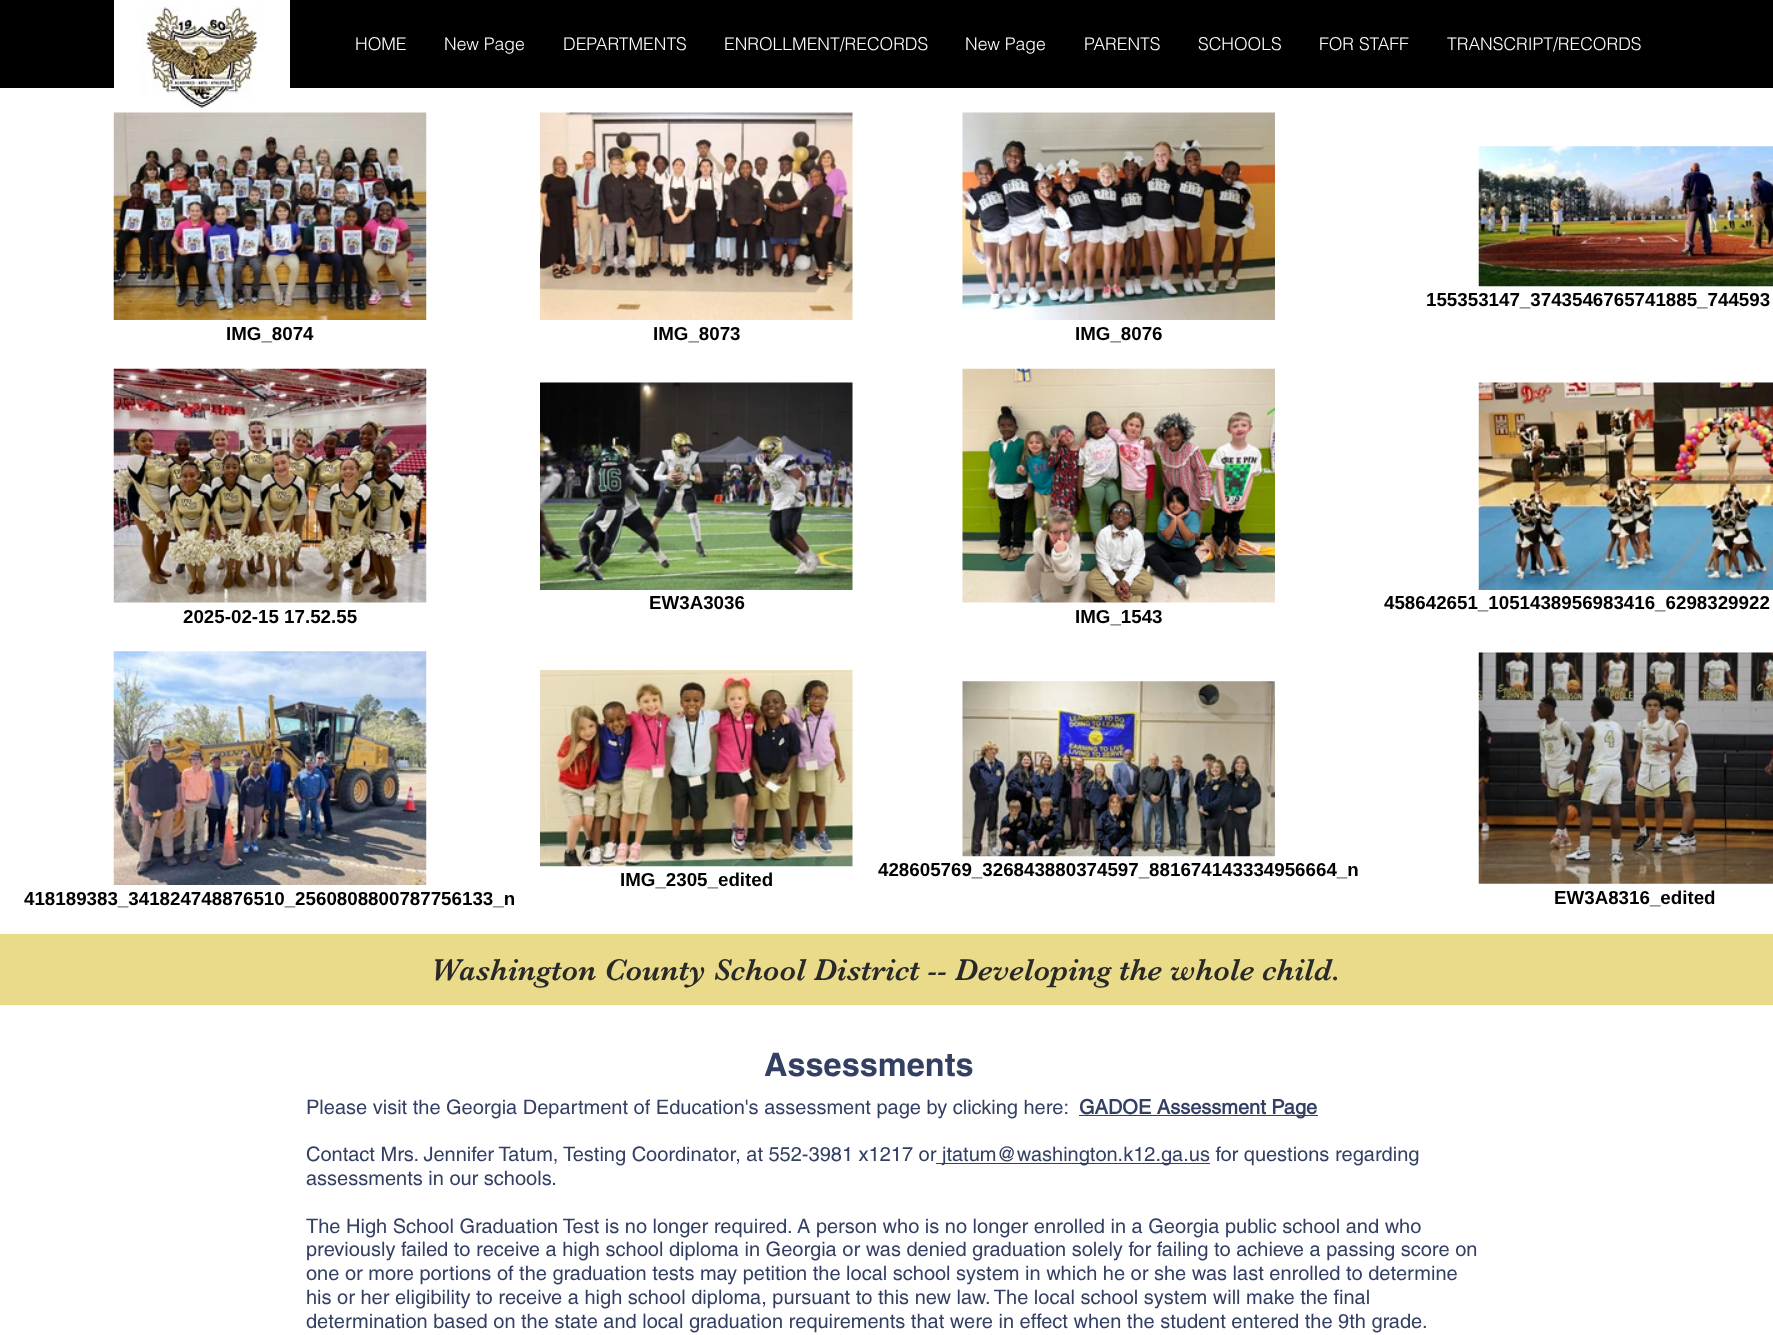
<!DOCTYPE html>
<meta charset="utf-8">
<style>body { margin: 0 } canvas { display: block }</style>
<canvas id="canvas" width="1773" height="1335"></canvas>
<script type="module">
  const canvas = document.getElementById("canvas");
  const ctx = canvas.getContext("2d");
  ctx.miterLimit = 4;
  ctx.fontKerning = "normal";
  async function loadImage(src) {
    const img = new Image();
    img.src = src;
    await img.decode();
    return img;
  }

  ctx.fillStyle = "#ffffff";
  ctx.fillRect(0, 0, 1773, 1335);
  ctx.fillStyle = "#000000";
  ctx.fillRect(0, 0, 1773, 88);
  ctx.fillStyle = "#ffffff";
  ctx.fillRect(114, 0, 176, 88);
  ctx.drawImage(await loadImage("img1.png"), 141, 5, 121, 103);
  ctx.font = "300 17.5px helvetica";
  ctx.fillText("HOME", 355, 50);
  ctx.fillText("New Page", 444, 50);
  ctx.fillText("DEPARTMENTS", 563, 50);
  ctx.fillText("ENROLLMENT/RECORDS", 724, 50);
  ctx.fillText("New Page", 965, 50);
  ctx.fillText("PARENTS", 1084, 50);
  ctx.fillText("SCHOOLS", 1198, 50);
  ctx.fillText("FOR STAFF", 1319, 50);
  ctx.fillText("TRANSCRIPT/RECORDS", 1447, 50);
  ctx.drawImage(await loadImage("img2.png"), 1478, 146, 295, 141);
  ctx.font = "bold 18.75px Liberation Sans";
  ctx.fillStyle = "#000000";
  ctx.fillText("155353147_3743546765741885_744593", 1426, 306);
  ctx.drawImage(await loadImage("img3.png"), 113, 112, 314, 208);
  ctx.fillText("IMG_8074", 226, 340);
  ctx.drawImage(await loadImage("img4.png"), 540, 112, 313, 208);
  ctx.fillText("IMG_8073", 653, 340);
  ctx.drawImage(await loadImage("img5.png"), 962, 112, 313, 208);
  ctx.fillText("IMG_8076", 1075, 340);
  ctx.drawImage(await loadImage("img6.png"), 540, 382, 313, 208);
  ctx.fillText("EW3A3036", 649, 609);
  ctx.drawImage(await loadImage("img7.png"), 1478, 382, 295, 208);
  ctx.fillText("458642651_1051438956983416_6298329922", 1384, 609);
  ctx.drawImage(await loadImage("img8.png"), 113, 368, 314, 235);
  ctx.fillText("2025-02-15 17.52.55", 183, 623);
  ctx.drawImage(await loadImage("img9.png"), 962, 368, 313, 235);
  ctx.fillText("IMG_1543", 1075, 623);
  ctx.drawImage(await loadImage("img10.png"), 540, 670, 313, 197);
  ctx.fillText("IMG_2305_edited", 620, 886);
  ctx.drawImage(await loadImage("img11.png"), 962, 681, 313, 176);
  ctx.fillText("428605769_326843880374597_881674143334956664_n", 878, 876);
  ctx.drawImage(await loadImage("img12.png"), 113, 651, 314, 234);
  ctx.fillText("418189383_341824748876510_2560808800787756133_n", 24, 905);
  ctx.drawImage(await loadImage("img13.png"), 1478, 652, 295, 232);
  ctx.fillText("EW3A8316_edited", 1554, 904);
  ctx.fillStyle = "#e9db89";
  ctx.fillRect(0, 934, 1773, 71);
  ctx.font = "31.25px 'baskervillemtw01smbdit'";
  ctx.fillStyle = "#292929";
  ctx.fillText("Washington County School District -- Developing the whole child.", 431, 980);
  ctx.font = "bold 32.5px helvetica";
  ctx.fillStyle = "#343f64";
  ctx.fillText("Assessments", 764, 1076);
  ctx.font = "20px helvetica";
  ctx.fillText("Please visit the Georgia Department of Education's assessment page by clicking here:", 306, 1114);
  ctx.fillRect(1079, 1115, 239, 1);
  ctx.font = "bold 20px 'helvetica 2'";
  ctx.fillText("GADOE Assessment Page", 1079, 1114);
  ctx.font = "20px helvetica";
  ctx.fillText("Contact Mrs. Jennifer Tatum, Testing Coordinator, at 552-3981 x1217 or", 306, 1161);
  ctx.fillRect(936, 1163, 274, 1);
  ctx.fillText("jtatum@washington.k12.ga.us for questions regarding", 942, 1161);
  ctx.fillText("assessments in our schools.", 306, 1185);
  ctx.fillText("The High School Graduation Test is no longer required. A person who is no longer enrolled in a Georgia public school and who", 306, 1233);
  ctx.fillText("previously failed to receive a high school diploma in Georgia or was denied graduation solely for failing to achieve a passing score on", 306, 1256);
  ctx.fillText("one or more portions of the graduation tests may petition the local school system in which he or she was last enrolled to determine", 306, 1280);
  ctx.fillText("his or her eligibility to receive a high school diploma, pursuant to this new law. The local school system will make the final", 306, 1304);
  ctx.fillText("determination based on the state and local graduation requirements that were in effect when the student entered the 9th grade.", 306, 1328);
</script>
